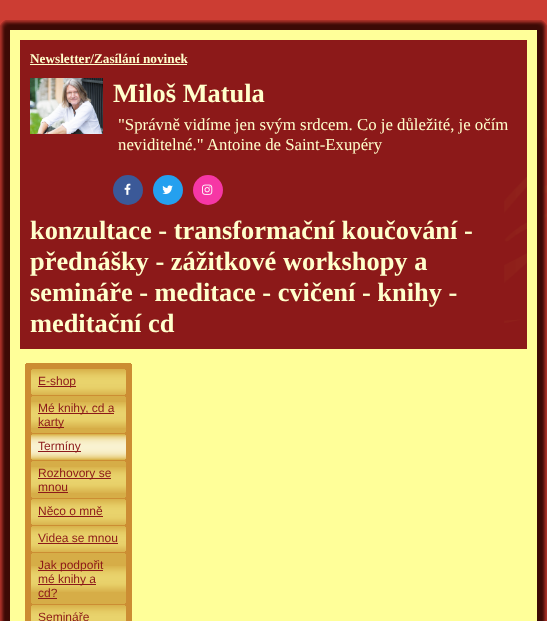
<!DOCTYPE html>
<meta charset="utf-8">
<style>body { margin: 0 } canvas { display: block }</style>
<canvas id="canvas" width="547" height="621"></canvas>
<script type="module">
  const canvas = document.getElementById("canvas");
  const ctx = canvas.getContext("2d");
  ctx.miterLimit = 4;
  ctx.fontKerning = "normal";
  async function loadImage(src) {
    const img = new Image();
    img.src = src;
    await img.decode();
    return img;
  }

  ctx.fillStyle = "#cc3d33";
  ctx.fillRect(0, 0, 547, 621);
  ctx.drawImage(await loadImage("img1.png"), 541, 129, 6, 492);
  ctx.drawImage(await loadImage("img2.png"), 0, 20, 10, 10);
  ctx.drawImage(await loadImage("img3.png"), 10, 20, 527, 10);
  ctx.drawImage(await loadImage("img4.png"), 537, 20, 10, 10);
  ctx.drawImage(await loadImage("img5.png"), 0, 30, 10, 591);
  ctx.drawImage(await loadImage("img6.png"), 537, 30, 10, 591);
  ctx.fillStyle = "#ffff99";
  ctx.fillRect(10, 30, 527, 591);
  ctx.fillStyle = "#8c1919";
  ctx.fillRect(20, 40, 507, 309);
  ctx.drawImage(await loadImage("img7.png"), 504, 177, 23, 146);
  ctx.font = "bold 13.25px Liberation Serif";
  ctx.fillStyle = "#ffffcc";
  ctx.fillText("Newsletter/Zasílání novinek", 30, 63);
  ctx.fillRect(30, 64, 157, 1);
  ctx.drawImage(await loadImage("img8.png"), 30, 78, 73, 56);
  ctx.font = "bold 26.4px Liberation Serif";
  ctx.fillText("Miloš Matula", 113, 102);
  ctx.font = "16.8px Liberation Serif";
  ctx.fillText("\"Správně vidíme jen svým srdcem. Co je důležité, je očím", 118, 130);
  ctx.fillText("neviditelné.\" Antoine de Saint-Exupéry", 118, 150);
  ctx.fillStyle = "#3b5998";
  ctx.beginPath();
  ctx.arc(128, 190, 15, 0, Math.PI * 2);
  ctx.fill();
  ctx.drawImage(await loadImage("img9.png"), 124, 183, 7, 12);
  ctx.fillStyle = "#24a0ef";
  ctx.beginPath();
  ctx.arc(168, 190, 15, 0, Math.PI * 2);
  ctx.fill();
  ctx.drawImage(await loadImage("img10.png"), 162, 185, 11, 9);
  ctx.fillStyle = "#f637a5";
  ctx.beginPath();
  ctx.arc(208, 190, 15, 0, Math.PI * 2);
  ctx.fill();
  ctx.drawImage(await loadImage("img11.png"), 202, 184, 11, 11);
  ctx.font = "bold 26.4px Liberation Serif";
  ctx.fillStyle = "#ffffcc";
  ctx.fillText("konzultace - transformační koučování -", 30, 239);
  ctx.fillText("přednášky - zážitkové workshopy a", 30, 270);
  ctx.fillText("semináře - meditace - cvičení - knihy -", 30, 301);
  ctx.fillText("meditační cd", 30, 332);
  ctx.fillStyle = "#cc8d33";
  ctx.fillRect(25, 364, 107, 257);
  ctx.fillRect(26, 363, 105, 1);
  ctx.drawImage(await loadImage("img12.png"), 31, 370, 95, 24);
  ctx.drawImage(await loadImage("img13.png"), 32, 369, 93, 26);
  ctx.fillStyle = "#8c1919";
  ctx.fillRect(38, 386, 38, 1);
  ctx.font = "12px Liberation Sans";
  ctx.fillText("E-shop", 38, 385);
  ctx.fillStyle = "#d6ad47";
  ctx.fillRect(31, 397, 95, 35);
  ctx.drawImage(await loadImage("img14.png"), 31, 402, 95, 26);
  ctx.fillRect(32, 396, 93, 37);
  ctx.drawImage(await loadImage("img15.png"), 32, 402, 93, 26);
  ctx.fillStyle = "#8c1919";
  ctx.fillRect(38, 413, 76, 1);
  ctx.fillText("Mé knihy, cd a", 38, 412);
  ctx.fillRect(38, 427, 26, 1);
  ctx.fillText("karty", 38, 426);
  ctx.drawImage(await loadImage("img16.png"), 31, 435, 95, 24);
  ctx.drawImage(await loadImage("img17.png"), 32, 434, 93, 26);
  ctx.fillRect(38, 451, 43, 1);
  ctx.fillText("Termíny", 38, 450);
  ctx.fillStyle = "#d6ad47";
  ctx.fillRect(31, 462, 95, 35);
  ctx.drawImage(await loadImage("img14.png"), 31, 467, 95, 26);
  ctx.fillRect(32, 461, 93, 37);
  ctx.drawImage(await loadImage("img15.png"), 32, 467, 93, 26);
  ctx.fillStyle = "#8c1919";
  ctx.fillRect(38, 478, 73, 1);
  ctx.fillText("Rozhovory se", 38, 477);
  ctx.fillText("mnou", 38, 491);
  ctx.fillRect(38, 492, 30, 1);
  ctx.drawImage(await loadImage("img12.png"), 31, 500, 95, 24);
  ctx.drawImage(await loadImage("img13.png"), 32, 499, 93, 26);
  ctx.fillText("Něco o mně", 38, 515);
  ctx.fillRect(38, 516, 65, 1);
  ctx.drawImage(await loadImage("img12.png"), 31, 527, 95, 24);
  ctx.drawImage(await loadImage("img13.png"), 32, 526, 93, 26);
  ctx.fillText("Videa se mnou", 38, 542);
  ctx.fillRect(38, 543, 80, 1);
  ctx.fillStyle = "#d6ad47";
  ctx.fillRect(31, 554, 95, 49);
  ctx.drawImage(await loadImage("img14.png"), 31, 566, 95, 26);
  ctx.fillRect(32, 553, 93, 51);
  ctx.drawImage(await loadImage("img15.png"), 32, 566, 93, 26);
  ctx.fillStyle = "#8c1919";
  ctx.fillRect(38, 570, 65, 1);
  ctx.fillText("Jak podpořit", 38, 569);
  ctx.fillRect(38, 584, 58, 1);
  ctx.fillText("mé knihy a", 38, 583);
  ctx.fillText("cd?", 38, 597);
  ctx.fillRect(38, 598, 19, 1);
  ctx.drawImage(await loadImage("img18.png"), 31, 606, 95, 15);
  ctx.drawImage(await loadImage("img19.png"), 32, 605, 93, 16);
  ctx.fillText("Semináře", 38, 621);
</script>
